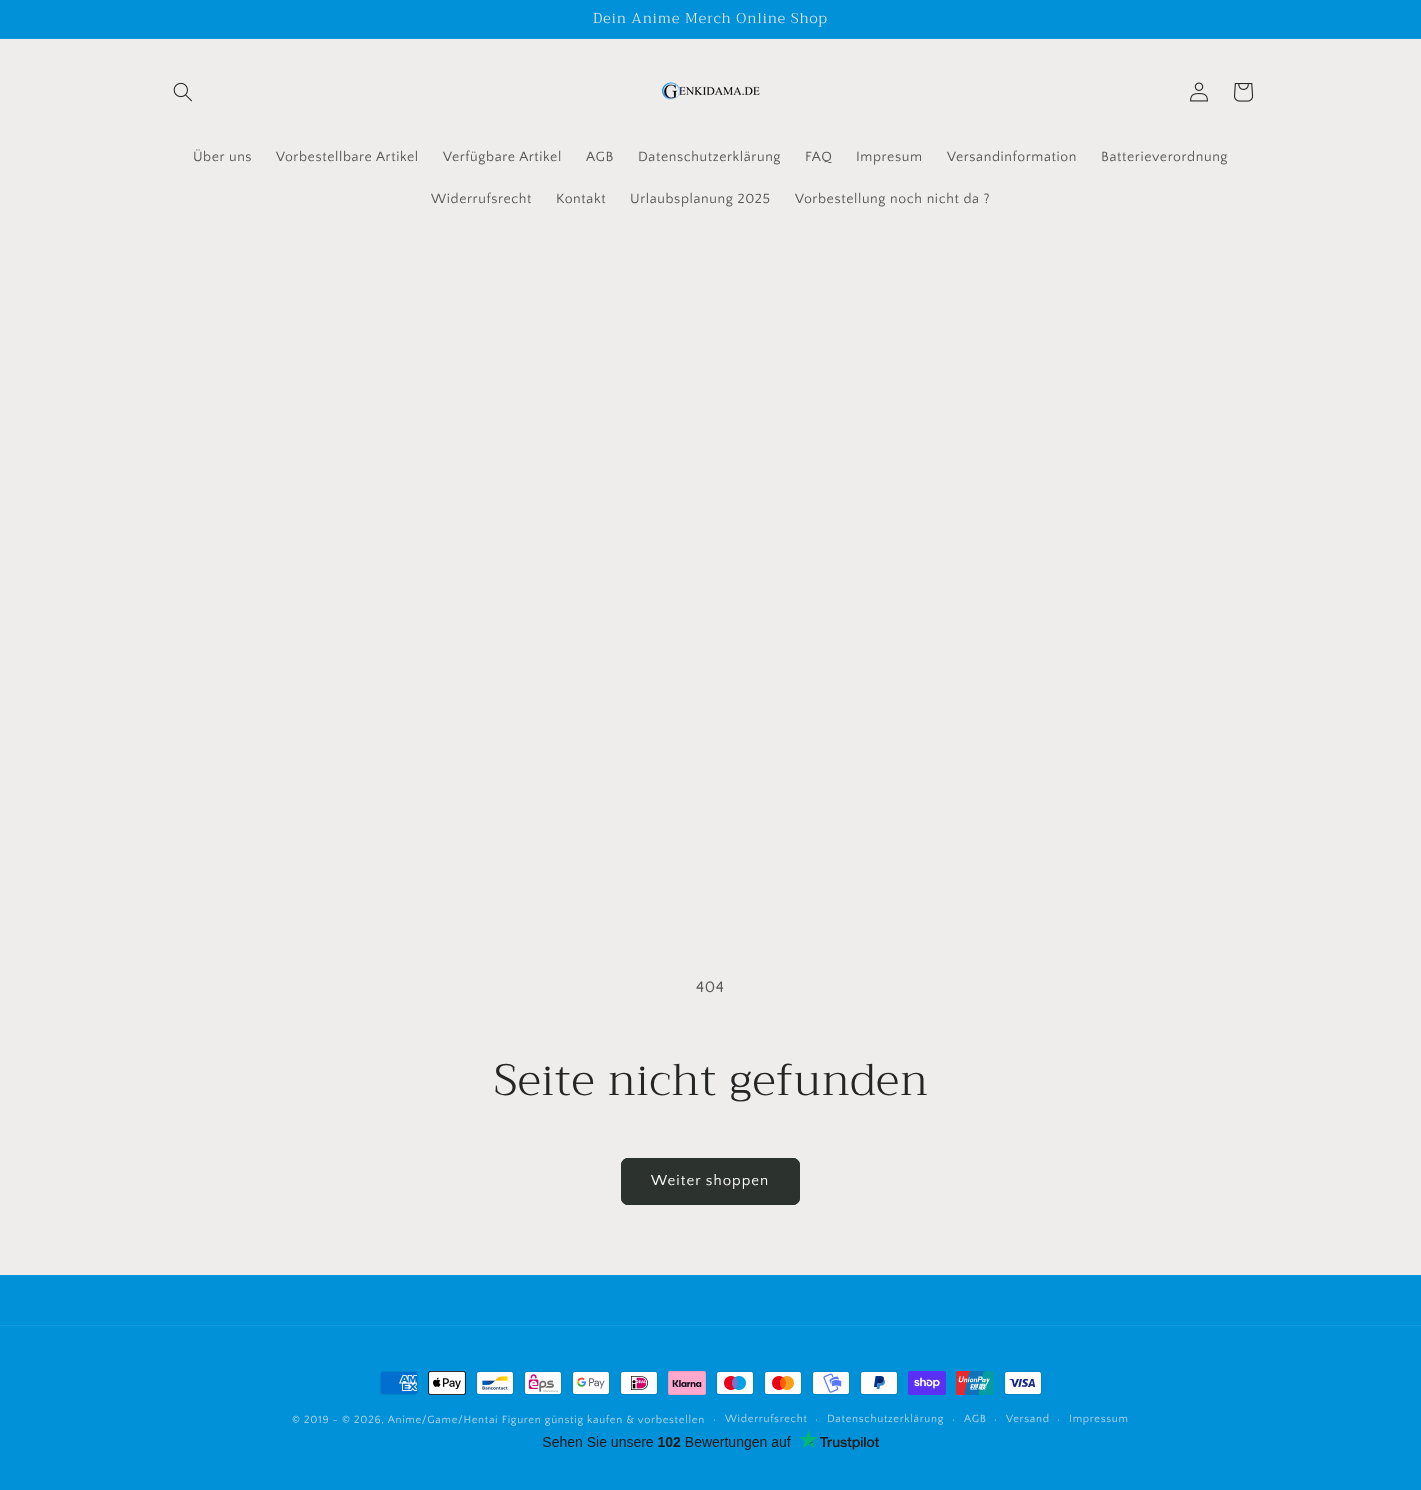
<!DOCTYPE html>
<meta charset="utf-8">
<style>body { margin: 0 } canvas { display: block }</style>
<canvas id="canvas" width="1421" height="1490"></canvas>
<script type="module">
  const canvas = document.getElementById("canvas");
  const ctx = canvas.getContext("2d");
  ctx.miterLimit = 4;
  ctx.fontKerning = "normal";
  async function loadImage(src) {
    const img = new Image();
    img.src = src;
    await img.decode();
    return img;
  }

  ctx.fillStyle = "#efecec";
  ctx.fillRect(0, 0, 1421, 1490);
  ctx.fillStyle = "#0091d8";
  ctx.fillRect(0, 0, 1421, 38);
  ctx.fillStyle = "#1398da";
  ctx.fillRect(0, 38, 1421, 1);
  ctx.letterSpacing = "1px";
  ctx.font = "300 14.25px Trirong";
  ctx.fillStyle = "#efecec";
  ctx.fillText("Dein Anime Merch Online Shop", 593, 23);
  ctx.drawImage(await loadImage("img1.png"), 173, 82, 19, 20);
  ctx.drawImage(await loadImage("img2.png"), 662, 82, 98, 18);
  ctx.drawImage(await loadImage("img3.png"), 1190, 82, 18, 20);
  ctx.drawImage(await loadImage("img4.png"), 1234, 83, 20, 19);
  ctx.letterSpacing = "0.6px";
  ctx.font = "14px Quattrocento Sans";
  ctx.fillStyle = "#585757";
  ctx.fillText("Über uns", 193, 161);
  ctx.fillText("Vorbestellbare Artikel", 276, 161);
  ctx.fillText("Verfügbare Artikel", 443, 161);
  ctx.fillText("AGB", 586, 161);
  ctx.fillText("Datenschutzerklärung", 638, 161);
  ctx.fillText("FAQ", 805, 161);
  ctx.fillText("Impresum", 856, 161);
  ctx.fillText("Versandinformation", 947, 161);
  ctx.fillText("Batterieverordnung", 1101, 161);
  ctx.fillText("Widerrufsrecht", 431, 203);
  ctx.fillText("Kontakt", 556, 203);
  ctx.fillText("Urlaubsplanung 2025", 630, 203);
  ctx.fillText("Vorbestellung noch nicht da ?", 795, 203);
  ctx.font = "16px Quattrocento Sans";
  ctx.fillText("404", 696, 992);
  ctx.letterSpacing = "0.7px";
  ctx.font = "300 44px Trirong";
  ctx.fillStyle = "#252525";
  ctx.fillText("Seite nicht gefunden", 494, 1095);
  ctx.fillStyle = "#2c332f";
  ctx.beginPath();
  ctx.roundRect(621, 1158, 179, 47, 7);
  ctx.fill();
  ctx.beginPath();
  ctx.roundRect(621.5, 1158.5, 178, 46, 6.5);
  ctx.strokeStyle = "#2c332f";
  ctx.stroke();
  ctx.letterSpacing = "1px";
  ctx.font = "15px Quattrocento Sans";
  ctx.fillStyle = "#ffffff";
  ctx.fillText("Weiter shoppen", 651, 1185);
  ctx.fillStyle = "#0091d8";
  ctx.fillRect(0, 1275, 1421, 215);
  ctx.fillStyle = "#1398da";
  ctx.fillRect(0, 1325, 1421, 1);
  ctx.drawImage(await loadImage("img5.png"), 380, 1371, 38, 24);
  ctx.drawImage(await loadImage("img6.png"), 428, 1371, 38, 24);
  ctx.drawImage(await loadImage("img7.png"), 476, 1371, 38, 24);
  ctx.drawImage(await loadImage("img8.png"), 524, 1371, 38, 24);
  ctx.drawImage(await loadImage("img9.png"), 572, 1371, 38, 24);
  ctx.drawImage(await loadImage("img10.png"), 620, 1371, 38, 24);
  ctx.drawImage(await loadImage("img11.png"), 668, 1371, 38, 24);
  ctx.drawImage(await loadImage("img12.png"), 716, 1371, 38, 24);
  ctx.drawImage(await loadImage("img13.png"), 764, 1371, 38, 24);
  ctx.drawImage(await loadImage("img14.png"), 812, 1371, 38, 24);
  ctx.drawImage(await loadImage("img15.png"), 860, 1371, 38, 24);
  ctx.drawImage(await loadImage("img16.png"), 908, 1371, 38, 24);
  ctx.drawImage(await loadImage("img17.png"), 956, 1371, 38, 24);
  ctx.drawImage(await loadImage("img18.png"), 1004, 1371, 38, 24);
  ctx.letterSpacing = "0.7px";
  ctx.font = "11px Quattrocento Sans";
  ctx.fillStyle = "#b3d5e7";
  ctx.fillText("© 2019 - © 2026, Anime/Game/Hentai Figuren günstig kaufen & vorbestellen", 292, 1423);
  ctx.font = "12px Quattrocento Sans";
  ctx.fillText("·", 713, 1423);
  ctx.font = "11px Quattrocento Sans";
  ctx.fillText("Widerrufsrecht", 725, 1422);
  ctx.font = "12px Quattrocento Sans";
  ctx.fillText("·", 815, 1423);
  ctx.font = "11px Quattrocento Sans";
  ctx.fillText("Datenschutzerklärung", 827, 1422);
  ctx.font = "12px Quattrocento Sans";
  ctx.fillText("·", 952, 1423);
  ctx.font = "11px Quattrocento Sans";
  ctx.fillText("AGB", 964, 1422);
  ctx.font = "12px Quattrocento Sans";
  ctx.fillText("·", 994, 1423);
  ctx.font = "11px Quattrocento Sans";
  ctx.fillText("Versand", 1006, 1422);
  ctx.font = "12px Quattrocento Sans";
  ctx.fillText("·", 1057, 1423);
  ctx.font = "11px Quattrocento Sans";
  ctx.fillText("Impressum", 1069, 1422);
  ctx.drawImage(await loadImage("img19.png"), 543, 1430, 336, 20);
</script>
